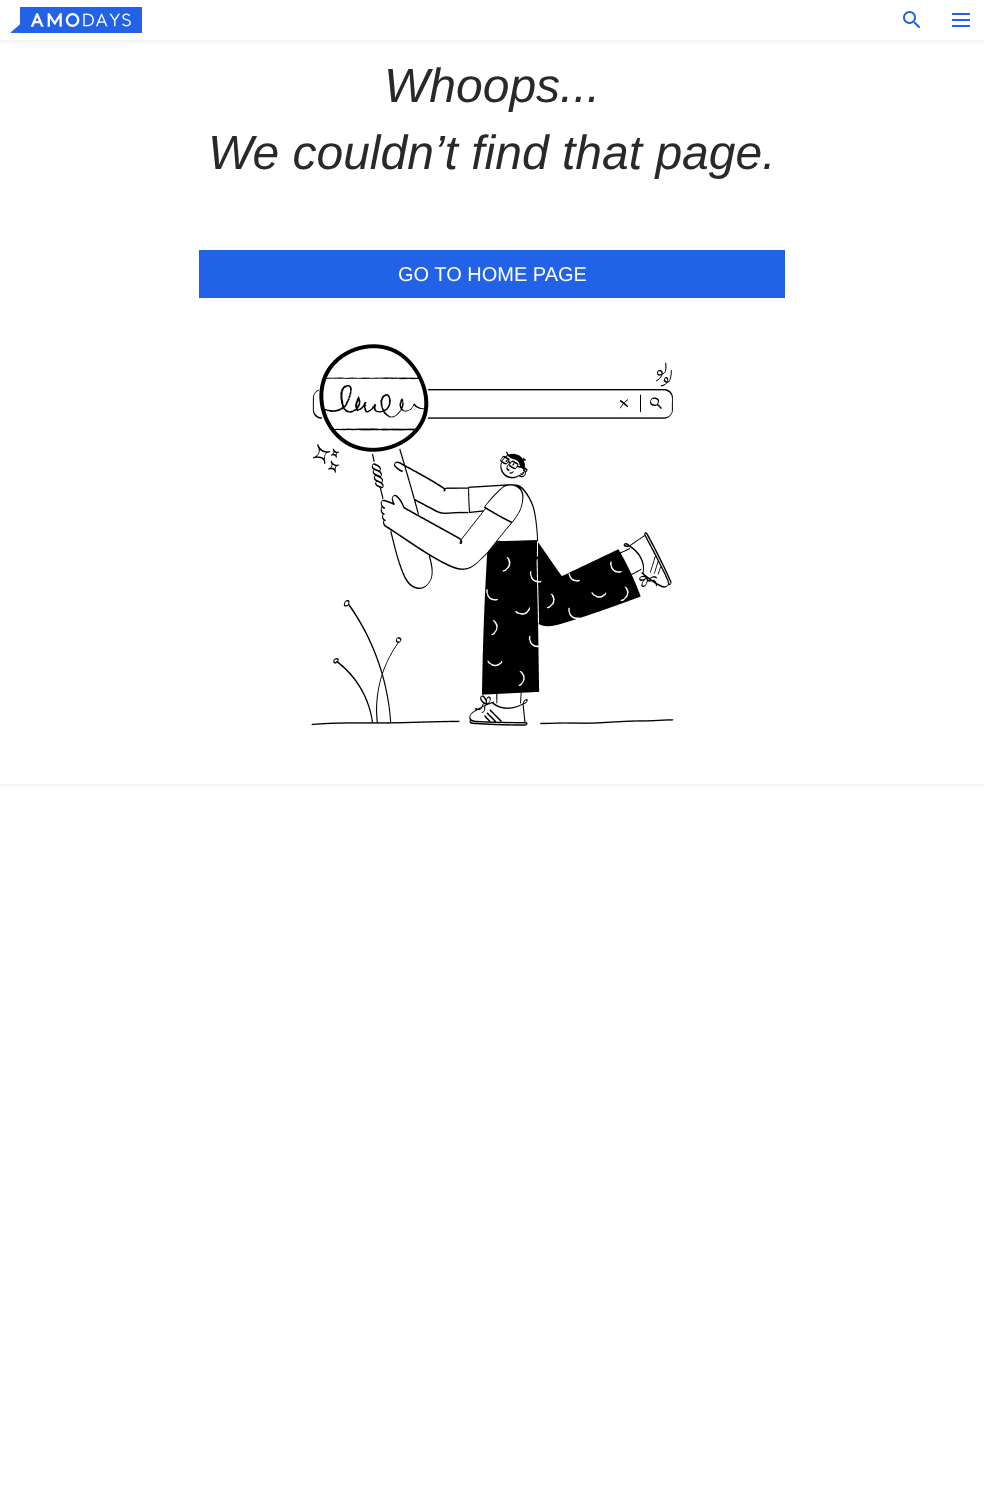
<!DOCTYPE html>
<meta charset="utf-8">
<style>body { margin: 0 } canvas { display: block }</style>
<canvas id="canvas" width="984" height="1501"></canvas>
<script type="module">
  const canvas = document.getElementById("canvas");
  const ctx = canvas.getContext("2d");
  ctx.miterLimit = 4;
  ctx.fontKerning = "normal";
  async function loadImage(src) {
    const img = new Image();
    img.src = src;
    await img.decode();
    return img;
  }

  ctx.fillStyle = "#ffffff";
  ctx.fillRect(0, 0, 984, 1501);
  ctx.fillStyle = "rgba(196, 196, 196, 0.5)";
  ctx.filter = "blur(2px)";
  ctx.beginPath();
  ctx.roundRect(0, 40, 984, 744, 1);
  ctx.fill();
  ctx.filter = "none";
  ctx.fillStyle = "#ffffff";
  ctx.beginPath();
  ctx.roundRect(0, 40, 984, 744, 1);
  ctx.fill();
  ctx.fillStyle = "rgba(196, 196, 196, 0.25)";
  ctx.filter = "blur(2px)";
  ctx.beginPath();
  ctx.rect(0, 2, 984, 40);
  ctx.fill();
  ctx.filter = "none";
  ctx.fillStyle = "#ffffff";
  ctx.fillRect(0, 0, 984, 40);
  ctx.drawImage(await loadImage("img1.png"), 10, 7, 132, 26);
  ctx.drawImage(await loadImage("img2.png"), 903, 11, 17, 17);
  ctx.fillStyle = "#2262e7";
  ctx.fillRect(952, 19, 18, 2);
  ctx.fillRect(952, 13, 18, 2);
  ctx.fillRect(952, 25, 18, 2);
  ctx.font = "italic 48px Liberation Sans";
  ctx.fillStyle = "#292929";
  ctx.fillText("Whoops...", 384, 102);
  ctx.fillText("We couldn’t find that page.", 208, 169);
  ctx.fillStyle = "#2262e7";
  ctx.fillRect(199, 250, 586, 48);
  ctx.font = "20px Liberation Sans";
  ctx.fillStyle = "#ffffff";
  ctx.fillText("GO TO HOME PAGE", 398, 281);
  ctx.drawImage(await loadImage("img3.png"), 311, 344, 363, 382);
</script>
